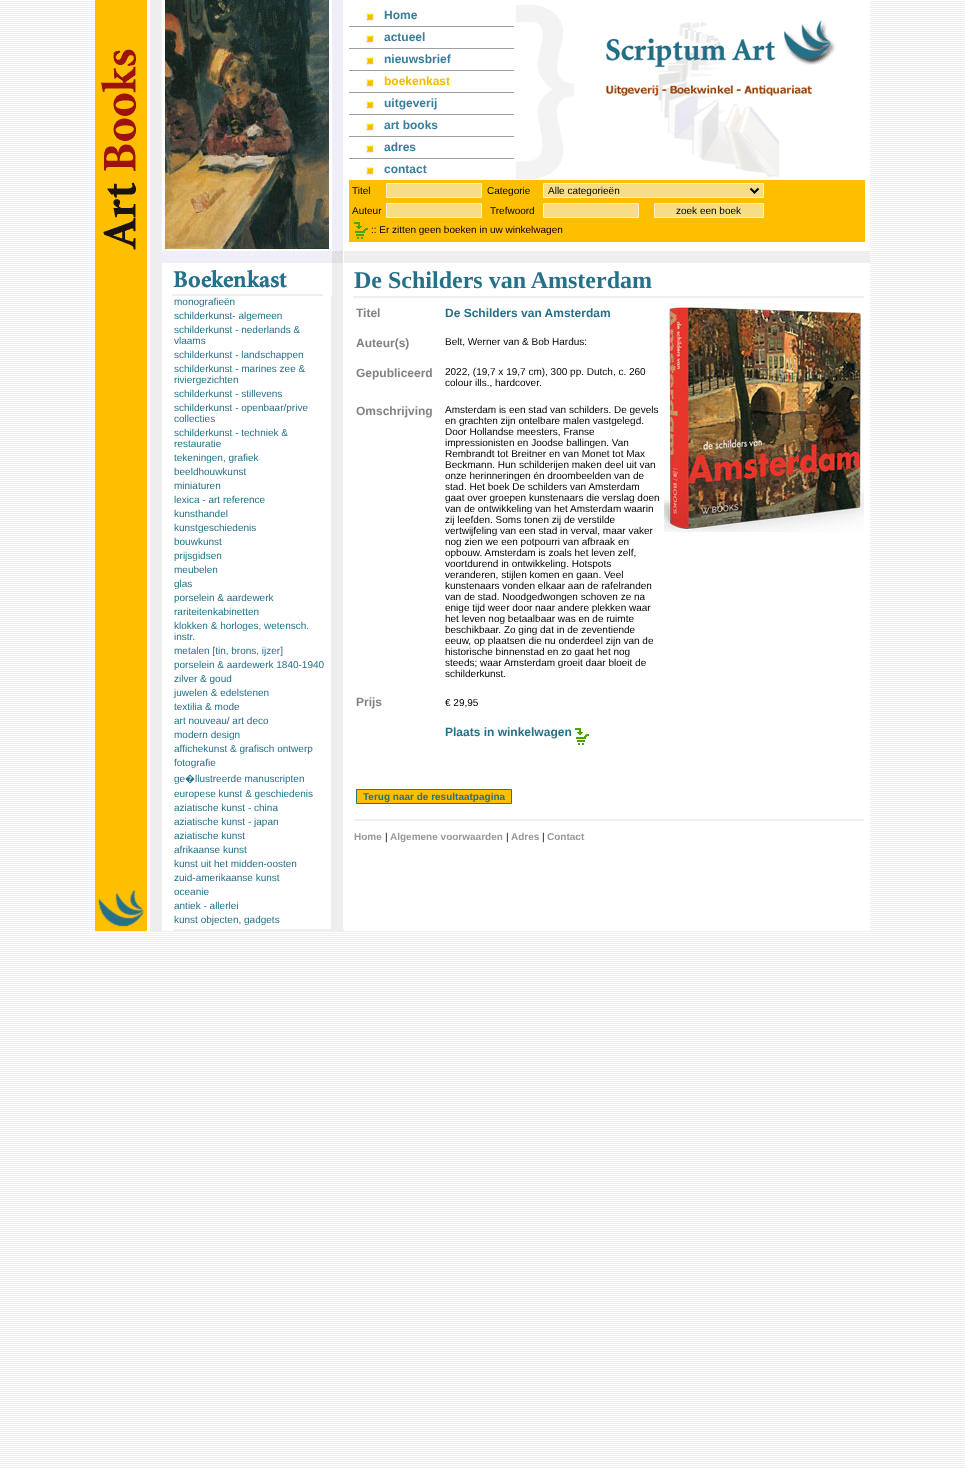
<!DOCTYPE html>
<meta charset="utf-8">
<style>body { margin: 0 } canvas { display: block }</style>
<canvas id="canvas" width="965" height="1468"></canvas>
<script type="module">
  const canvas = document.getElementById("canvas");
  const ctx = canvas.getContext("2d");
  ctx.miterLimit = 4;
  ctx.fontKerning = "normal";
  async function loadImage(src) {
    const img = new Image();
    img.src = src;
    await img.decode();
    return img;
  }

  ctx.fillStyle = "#ffffff";
  ctx.fillRect(0, 0, 965, 1468);
  ctx.drawImage(await loadImage("img1.png"), 0, 1, 965, 1467);
  ctx.drawImage(await loadImage("img2.png"), 95, 367, 67, 564);
  ctx.drawImage(await loadImage("img3.png"), 98, 889, 47, 38);
  ctx.drawImage(await loadImage("img4.png"), 95, 0, 67, 367);
  ctx.drawImage(await loadImage("img5.png"), 101, 49, 35, 201);
  ctx.drawImage(await loadImage("img6.png"), 162, 0, 182, 263);
  ctx.drawImage(await loadImage("img7.png"), 344, 1, 526, 262);
  ctx.font = "bold 12px Liberation Sans";
  ctx.fillStyle = "#3a7d9a";
  ctx.fillText("Home", 384, 19);
  ctx.fillStyle = "#9f9fa1";
  ctx.fillRect(349, 26, 165, 1);
  ctx.drawImage(await loadImage("img8.png"), 366, 13, 8, 8);
  ctx.fillStyle = "#3a7d9a";
  ctx.fillText("actueel", 384, 41);
  ctx.fillStyle = "#9f9fa1";
  ctx.fillRect(349, 48, 165, 1);
  ctx.drawImage(await loadImage("img8.png"), 366, 35, 8, 8);
  ctx.fillStyle = "#3a7d9a";
  ctx.fillText("nieuwsbrief", 384, 63);
  ctx.fillStyle = "#9f9fa1";
  ctx.fillRect(349, 70, 165, 1);
  ctx.drawImage(await loadImage("img8.png"), 366, 57, 8, 8);
  ctx.fillStyle = "#f7ba00";
  ctx.fillText("boekenkast", 384, 85);
  ctx.fillStyle = "#9f9fa1";
  ctx.fillRect(349, 92, 165, 1);
  ctx.drawImage(await loadImage("img8.png"), 366, 79, 8, 8);
  ctx.fillStyle = "#3a7d9a";
  ctx.fillText("uitgeverij", 384, 107);
  ctx.fillStyle = "#9f9fa1";
  ctx.fillRect(349, 114, 165, 1);
  ctx.drawImage(await loadImage("img8.png"), 366, 101, 8, 8);
  ctx.fillStyle = "#3a7d9a";
  ctx.fillText("art books", 384, 129);
  ctx.fillStyle = "#9f9fa1";
  ctx.fillRect(349, 136, 165, 1);
  ctx.drawImage(await loadImage("img8.png"), 366, 123, 8, 8);
  ctx.fillStyle = "#3a7d9a";
  ctx.fillText("adres", 384, 151);
  ctx.fillStyle = "#9f9fa1";
  ctx.fillRect(349, 158, 165, 1);
  ctx.drawImage(await loadImage("img8.png"), 366, 145, 8, 8);
  ctx.drawImage(await loadImage("img8.png"), 366, 167, 8, 8);
  ctx.fillStyle = "#3a7d9a";
  ctx.fillText("contact", 384, 173);
  ctx.drawImage(await loadImage("img9.png"), 516, 5, 320, 174);
  ctx.fillStyle = "#ffbf01";
  ctx.fillRect(349, 180, 516, 62);
  ctx.font = "10px Liberation Sans";
  ctx.fillStyle = "#000000";
  ctx.fillText("Titel", 352, 194);
  ctx.fillStyle = "#f7dd86";
  ctx.beginPath();
  ctx.rect(386.5, 183.5, 95, 14);
  ctx.fill();
  ctx.strokeStyle = "#fcf1cc";
  ctx.stroke();
  ctx.fillStyle = "#000000";
  ctx.fillText("Categorie", 487, 194);
  ctx.fillStyle = "#f7dd86";
  ctx.beginPath();
  ctx.rect(543.5, 183.5, 220, 14);
  ctx.fill();
  ctx.stroke();
  ctx.beginPath();
  ctx.moveTo(750.5, 188.5);
  ctx.lineTo(754.5, 192.5);
  ctx.lineTo(758.5, 188.5);
  ctx.strokeStyle = "#000000";
  ctx.lineWidth = 2;
  ctx.stroke();
  ctx.fillStyle = "#000000";
  ctx.fillText("Alle categorieën", 548, 194);
  ctx.fillText("Auteur", 352, 214);
  ctx.fillStyle = "#f7dd86";
  ctx.beginPath();
  ctx.rect(386.5, 203.5, 95, 14);
  ctx.fill();
  ctx.strokeStyle = "#fcf1cc";
  ctx.lineWidth = 1;
  ctx.stroke();
  ctx.fillStyle = "#000000";
  ctx.fillText("Trefwoord", 490, 214);
  ctx.fillStyle = "#f7dd86";
  ctx.beginPath();
  ctx.rect(543.5, 203.5, 95, 14);
  ctx.fill();
  ctx.stroke();
  ctx.beginPath();
  ctx.rect(654.5, 203.5, 109, 14);
  ctx.fill();
  ctx.stroke();
  ctx.fillStyle = "#000000";
  ctx.fillText("zoek een boek", 676, 214);
  ctx.drawImage(await loadImage("img10.png"), 354, 222, 14, 17);
  ctx.fillText(":: Er zitten geen boeken in uw winkelwagen", 371, 233);
  ctx.fillStyle = "#ffffff";
  ctx.fillRect(162, 263, 708, 667);
  ctx.fillStyle = "#efeeef";
  ctx.fillRect(331, 263, 12, 666);
  ctx.drawImage(await loadImage("img11.png"), 172, 263, 160, 33);
  ctx.fillStyle = "#257189";
  ctx.fillText("monografieën", 174, 305);
  ctx.fillText("schilderkunst- algemeen", 174, 319);
  ctx.fillText("schilderkunst - nederlands &", 174, 333);
  ctx.fillText("vlaams", 174, 344);
  ctx.fillText("schilderkunst - landschappen", 174, 358);
  ctx.fillText("schilderkunst - marines zee &", 174, 372);
  ctx.fillText("riviergezichten", 174, 383);
  ctx.fillText("schilderkunst - stillevens", 174, 397);
  ctx.fillText("schilderkunst - openbaar/prive", 174, 411);
  ctx.fillText("collecties", 174, 422);
  ctx.fillText("schilderkunst - techniek &", 174, 436);
  ctx.fillText("restauratie", 174, 447);
  ctx.fillText("tekeningen, grafiek", 174, 461);
  ctx.fillText("beeldhouwkunst", 174, 475);
  ctx.fillText("miniaturen", 174, 489);
  ctx.fillText("lexica - art reference", 174, 503);
  ctx.fillText("kunsthandel", 174, 517);
  ctx.fillText("kunstgeschiedenis", 174, 531);
  ctx.fillText("bouwkunst", 174, 545);
  ctx.fillText("prijsgidsen", 174, 559);
  ctx.fillText("meubelen", 174, 573);
  ctx.fillText("glas", 174, 587);
  ctx.fillText("porselein & aardewerk", 174, 601);
  ctx.fillText("rariteitenkabinetten", 174, 615);
  ctx.fillText("klokken & horloges, wetensch.", 174, 629);
  ctx.fillText("instr.", 174, 640);
  ctx.fillText("metalen [tin, brons, ijzer]", 174, 654);
  ctx.fillText("porselein & aardewerk 1840-1940", 174, 668);
  ctx.fillText("zilver & goud", 174, 682);
  ctx.fillText("juwelen & edelstenen", 174, 696);
  ctx.fillText("textilia & mode", 174, 710);
  ctx.fillText("art nouveau/ art deco", 174, 724);
  ctx.fillText("modern design", 174, 738);
  ctx.fillText("affichekunst & grafisch ontwerp", 174, 752);
  ctx.fillText("fotografie", 174, 766);
  ctx.fillText("ge", 174, 782);
  ctx.font = "10px Noto Sans";
  ctx.fillText("�", 185, 782);
  ctx.font = "10px Liberation Sans";
  ctx.fillText("llustreerde manuscripten", 195, 782);
  ctx.fillText("europese kunst & geschiedenis", 174, 797);
  ctx.fillText("aziatische kunst - china", 174, 811);
  ctx.fillText("aziatische kunst - japan", 174, 825);
  ctx.fillText("aziatische kunst", 174, 839);
  ctx.fillText("afrikaanse kunst", 174, 853);
  ctx.fillText("kunst uit het midden-oosten", 174, 867);
  ctx.fillText("zuid-amerikaanse kunst", 174, 881);
  ctx.fillText("oceanie", 174, 895);
  ctx.fillText("antiek - allerlei", 174, 909);
  ctx.fillText("kunst objecten, gadgets", 174, 923);
  ctx.fillStyle = "#efeff0";
  ctx.fillRect(174, 929, 170, 2);
  ctx.font = "bold 24px Liberation Serif";
  ctx.fillStyle = "#257189";
  ctx.fillText("De Schilders van Amsterdam", 354, 288);
  ctx.fillStyle = "#efeff0";
  ctx.fillRect(353, 296, 511, 2);
  ctx.font = "bold 12px Liberation Sans";
  ctx.fillStyle = "#838181";
  ctx.fillText("Titel", 356, 317);
  ctx.fillStyle = "#257189";
  ctx.fillText("De Schilders van Amsterdam", 445, 317);
  ctx.fillStyle = "#838181";
  ctx.fillText("Auteur(s)", 356, 347);
  ctx.font = "10px Liberation Sans";
  ctx.fillStyle = "#000000";
  ctx.fillText("Belt, Werner van & Bob Hardus:", 445, 345);
  ctx.font = "bold 12px Liberation Sans";
  ctx.fillStyle = "#838181";
  ctx.fillText("Gepubliceerd", 356, 377);
  ctx.font = "10px Liberation Sans";
  ctx.fillStyle = "#000000";
  ctx.fillText("2022, (19,7 x 19,7 cm), 300 pp. Dutch, c. 260", 445, 375);
  ctx.fillText("colour ills., hardcover.", 445, 386);
  ctx.font = "bold 12px Liberation Sans";
  ctx.fillStyle = "#838181";
  ctx.fillText("Omschrijving", 356, 415);
  ctx.font = "10px Liberation Sans";
  ctx.fillStyle = "#000000";
  ctx.fillText("Amsterdam is een stad van schilders. De gevels", 445, 413);
  ctx.fillText("en grachten zijn ontelbare malen vastgelegd.", 445, 424);
  ctx.fillText("Door Hollandse meesters, Franse", 445, 435);
  ctx.fillText("impressionisten en Joodse ballingen. Van", 445, 446);
  ctx.fillText("Rembrandt tot Breitner en van Monet tot Max", 445, 457);
  ctx.fillText("Beckmann. Hun schilderijen maken deel uit van", 445, 468);
  ctx.fillText("onze herinneringen én droombeelden van de", 445, 479);
  ctx.fillText("stad. Het boek De schilders van Amsterdam", 445, 490);
  ctx.fillText("gaat over groepen kunstenaars die verslag doen", 445, 501);
  ctx.fillText("van de ontwikkeling van het Amsterdam waarin", 445, 512);
  ctx.fillText("zij leefden. Soms tonen zij de verstilde", 445, 523);
  ctx.fillText("vertwijfeling van een stad in verval, maar vaker", 445, 534);
  ctx.fillText("nog zien we een potpourri van afbraak en", 445, 545);
  ctx.fillText("opbouw. Amsterdam is zoals het leven zelf,", 445, 556);
  ctx.fillText("voortdurend in ontwikkeling. Hotspots", 445, 567);
  ctx.fillText("veranderen, stijlen komen en gaan. Veel", 445, 578);
  ctx.fillText("kunstenaars vonden elkaar aan de rafelranden", 445, 589);
  ctx.fillText("van de stad. Noodgedwongen schoven ze na", 445, 600);
  ctx.fillText("enige tijd weer door naar andere plekken waar", 445, 611);
  ctx.fillText("het leven nog betaalbaar was en de ruimte", 445, 622);
  ctx.fillText("beschikbaar. Zo ging dat in de zeventiende", 445, 633);
  ctx.fillText("eeuw, op plaatsen die nu onderdeel zijn van de", 445, 644);
  ctx.fillText("historische binnenstad en zo gaat het nog", 445, 655);
  ctx.fillText("steeds; waar Amsterdam groeit daar bloeit de", 445, 666);
  ctx.fillText("schilderkunst.", 445, 677);
  ctx.font = "bold 12px Liberation Sans";
  ctx.fillStyle = "#838181";
  ctx.fillText("Prijs", 356, 706);
  ctx.font = "10px Liberation Sans";
  ctx.fillStyle = "#000000";
  ctx.fillText("€ 29,95", 445, 706);
  ctx.font = "bold 12px Liberation Sans";
  ctx.fillStyle = "#257189";
  ctx.fillText("Plaats in winkelwagen", 445, 736);
  ctx.drawImage(await loadImage("img12.png"), 575, 728, 14, 17);
  ctx.fillStyle = "#ffbe00";
  ctx.beginPath();
  ctx.rect(356.5, 789.5, 155, 14);
  ctx.fill();
  ctx.strokeStyle = "#297584";
  ctx.stroke();
  ctx.font = "bold 10px Liberation Sans";
  ctx.fillStyle = "#257189";
  ctx.fillText("Terug naar de resultaatpagina", 363, 800);
  ctx.drawImage(await loadImage("img13.png"), 664, 303, 200, 229);
  ctx.fillStyle = "#efeff0";
  ctx.fillRect(354, 819, 510, 2);
  ctx.fillStyle = "#999999";
  ctx.fillText("Home", 354, 840);
  ctx.font = "10px Liberation Sans";
  ctx.fillStyle = "#000000";
  ctx.fillText("|", 385, 840);
  ctx.font = "bold 10px Liberation Sans";
  ctx.fillStyle = "#999999";
  ctx.fillText("Algemene voorwaarden", 390, 840);
  ctx.font = "10px Liberation Sans";
  ctx.fillStyle = "#000000";
  ctx.fillText("|", 506, 840);
  ctx.font = "bold 10px Liberation Sans";
  ctx.fillStyle = "#999999";
  ctx.fillText("Adres", 511, 840);
  ctx.font = "10px Liberation Sans";
  ctx.fillStyle = "#000000";
  ctx.fillText("|", 542, 840);
  ctx.font = "bold 10px Liberation Sans";
  ctx.fillStyle = "#999999";
  ctx.fillText("Contact", 547, 840);
</script>
